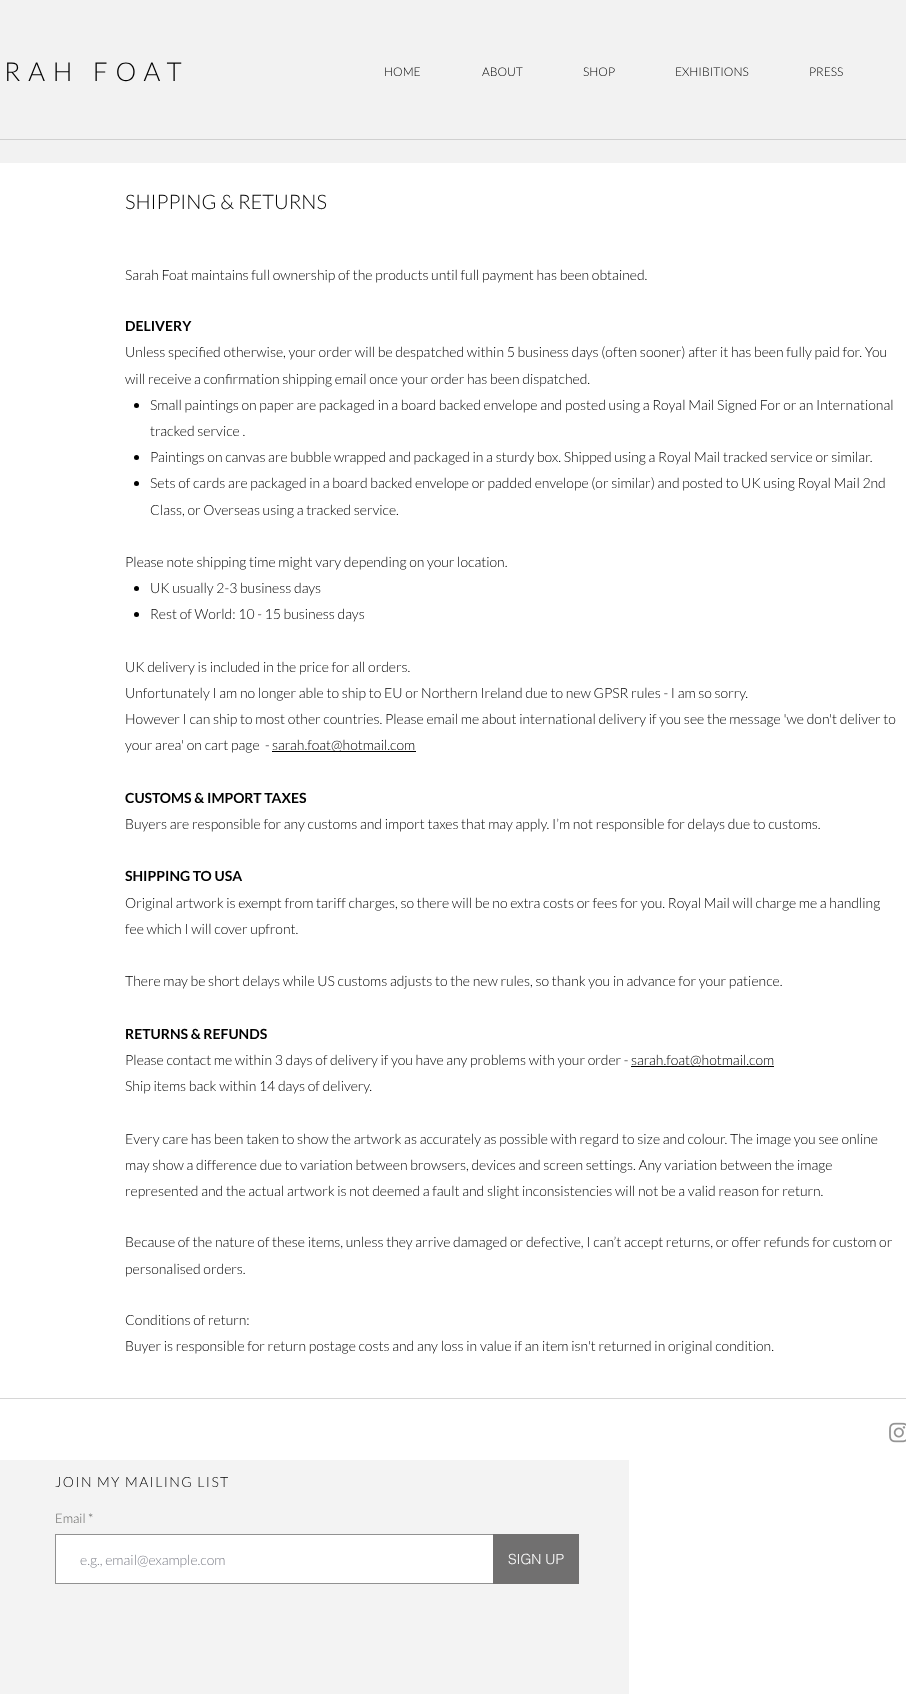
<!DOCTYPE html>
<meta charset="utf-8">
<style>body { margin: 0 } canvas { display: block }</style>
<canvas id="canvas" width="906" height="1708"></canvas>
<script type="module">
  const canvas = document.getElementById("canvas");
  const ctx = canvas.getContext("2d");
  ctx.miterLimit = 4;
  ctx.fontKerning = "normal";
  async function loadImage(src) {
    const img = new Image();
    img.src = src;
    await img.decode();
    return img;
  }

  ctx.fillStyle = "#ffffff";
  ctx.fillRect(0, 0, 906, 1708);
  ctx.fillStyle = "#f2f2f2";
  ctx.fillRect(0, 0, 906, 163);
  ctx.letterSpacing = "7.75px";
  ctx.font = "300 26px Lato";
  ctx.fillStyle = "#000000";
  ctx.fillText("RAH FOAT", 4, 81);
  ctx.letterSpacing = "0px";
  ctx.font = "300 12px Lato";
  ctx.fillText("HOME", 384, 76);
  ctx.fillText("ABOUT", 482, 76);
  ctx.fillText("SHOP", 583, 76);
  ctx.fillText("EXHIBITIONS", 675, 76);
  ctx.fillText("PRESS", 809, 76);
  ctx.fillStyle = "#d0d0d0";
  ctx.fillRect(0, 139, 906, 1);
  ctx.font = "300 20px Lato";
  ctx.fillStyle = "#000000";
  ctx.fillText("SHIPPING & RETURNS", 125, 209);
  ctx.font = "300 14px Lato";
  ctx.fillText("Sarah Foat maintains full ownership of the products until full payment has been obtained.", 125, 280);
  ctx.font = "bold 14px Lato";
  ctx.fillText("DELIVERY", 125, 331);
  ctx.font = "300 14px Lato";
  ctx.fillText("Unless specified otherwise, your order will be despatched within 5 business days (often sooner) after it has been fully paid for. You", 125, 357);
  ctx.fillText("will receive a confirmation shipping email once your order has been dispatched.", 125, 384);
  ctx.beginPath();
  ctx.arc(136.5, 405.5, 2.5, 0, Math.PI * 2);
  ctx.fill();
  ctx.fillText("Small paintings on paper are packaged in a board backed envelope and posted using a Royal Mail Signed For or an International", 150, 410);
  ctx.fillText("tracked service .", 150, 436);
  ctx.beginPath();
  ctx.arc(136.5, 457.5, 2.5, 0, Math.PI * 2);
  ctx.fill();
  ctx.fillText("Paintings on canvas are bubble wrapped and packaged in a sturdy box. Shipped using a Royal Mail tracked service or similar.", 150, 462);
  ctx.beginPath();
  ctx.arc(136.5, 483.5, 2.5, 0, Math.PI * 2);
  ctx.fill();
  ctx.fillText("Sets of cards are packaged in a board backed envelope or padded envelope (or similar) and posted to UK using Royal Mail 2nd", 150, 488);
  ctx.fillText("Class, or Overseas using a tracked service.", 150, 515);
  ctx.fillText("Please note shipping time might vary depending on your location.", 125, 567);
  ctx.beginPath();
  ctx.arc(136.5, 588.5, 2.5, 0, Math.PI * 2);
  ctx.fill();
  ctx.fillText("UK usually 2-3 business days", 150, 593);
  ctx.beginPath();
  ctx.arc(136.5, 614.5, 2.5, 0, Math.PI * 2);
  ctx.fill();
  ctx.fillText("Rest of World: 10 - 15 business days", 150, 619);
  ctx.fillText("UK delivery is included in the price for all orders.", 125, 672);
  ctx.fillText("Unfortunately I am no longer able to ship to EU or Northern Ireland due to new GPSR rules - I am so sorry.", 125, 698);
  ctx.fillText("However I can ship to most other countries. Please email me about international delivery if you see the message 'we don't deliver to", 125, 724);
  ctx.fillText("your area' on cart page  -", 125, 750);
  ctx.fillRect(272, 751, 144, 1);
  ctx.fillText("sarah.foat@hotmail.com", 272, 750);
  ctx.font = "bold 14px Lato";
  ctx.fillText("CUSTOMS & IMPORT TAXES", 125, 803);
  ctx.font = "300 14px Lato";
  ctx.fillText("Buyers are responsible for any customs and import taxes that may apply. I’m not responsible for delays due to customs.", 125, 829);
  ctx.font = "bold 14px Lato";
  ctx.fillText("SHIPPING TO USA", 125, 881);
  ctx.font = "300 14px Lato";
  ctx.fillText("Original artwork is exempt from tariff charges, so there will be no extra costs or fees for you. Royal Mail will charge me a handling", 125, 908);
  ctx.fillText("fee which I will cover upfront.", 125, 934);
  ctx.fillText("There may be short delays while US customs adjusts to the new rules, so thank you in advance for your patience.", 125, 986);
  ctx.font = "bold 14px Lato";
  ctx.fillText("RETURNS & REFUNDS", 125, 1039);
  ctx.font = "300 14px Lato";
  ctx.fillText("Please contact me within 3 days of delivery if you have any problems with your order -", 125, 1065);
  ctx.fillRect(631, 1066, 143, 1);
  ctx.fillText("sarah.foat@hotmail.com", 631, 1065);
  ctx.fillText("Ship items back within 14 days of delivery.", 125, 1091);
  ctx.fillText("Every care has been taken to show the artwork as accurately as possible with regard to size and colour. The image you see online", 125, 1144);
  ctx.fillText("may show a difference due to variation between browsers, devices and screen settings. Any variation between the image", 125, 1170);
  ctx.fillText("represented and the actual artwork is not deemed a fault and slight inconsistencies will not be a valid reason for return.", 125, 1196);
  ctx.fillText("Because of the nature of these items, unless they arrive damaged or defective, I can’t accept returns, or offer refunds for custom or", 125, 1247);
  ctx.fillText("personalised orders.", 125, 1274);
  ctx.fillText("Conditions of return:", 125, 1325);
  ctx.fillText("Buyer is responsible for return postage costs and any loss in value if an item isn't returned in original condition.", 125, 1351);
  ctx.fillStyle = "#d6d6d6";
  ctx.fillRect(0, 1398, 906, 1);
  ctx.drawImage(await loadImage("img1.png"), 889, 1422, 17, 21);
  ctx.fillStyle = "#f3f3f3";
  ctx.fillRect(0, 1460, 629, 234);
  ctx.letterSpacing = "1.4px";
  ctx.fillStyle = "#000000";
  ctx.fillText("JOIN MY MAILING LIST", 55, 1487);
  ctx.letterSpacing = "0px";
  ctx.font = "300 13px Lato";
  ctx.fillStyle = "#61615f";
  ctx.fillText("Email *", 55, 1523);
  ctx.fillStyle = "#ffffff";
  ctx.fillRect(56, 1535, 437, 48);
  ctx.strokeStyle = "#919191";
  ctx.strokeRect(55.5, 1534.5, 443, 49);
  ctx.font = "300 14px Lato";
  ctx.fillStyle = "#7f808a";
  ctx.fillText("e.g., email@example.com", 80, 1565);
  ctx.fillStyle = "#717070";
  ctx.fillRect(493, 1534, 86, 50);
  ctx.font = "300 14px helvetica";
  ctx.fillStyle = "#ffffff";
  ctx.fillText("SIGN UP", 508, 1564);
</script>
